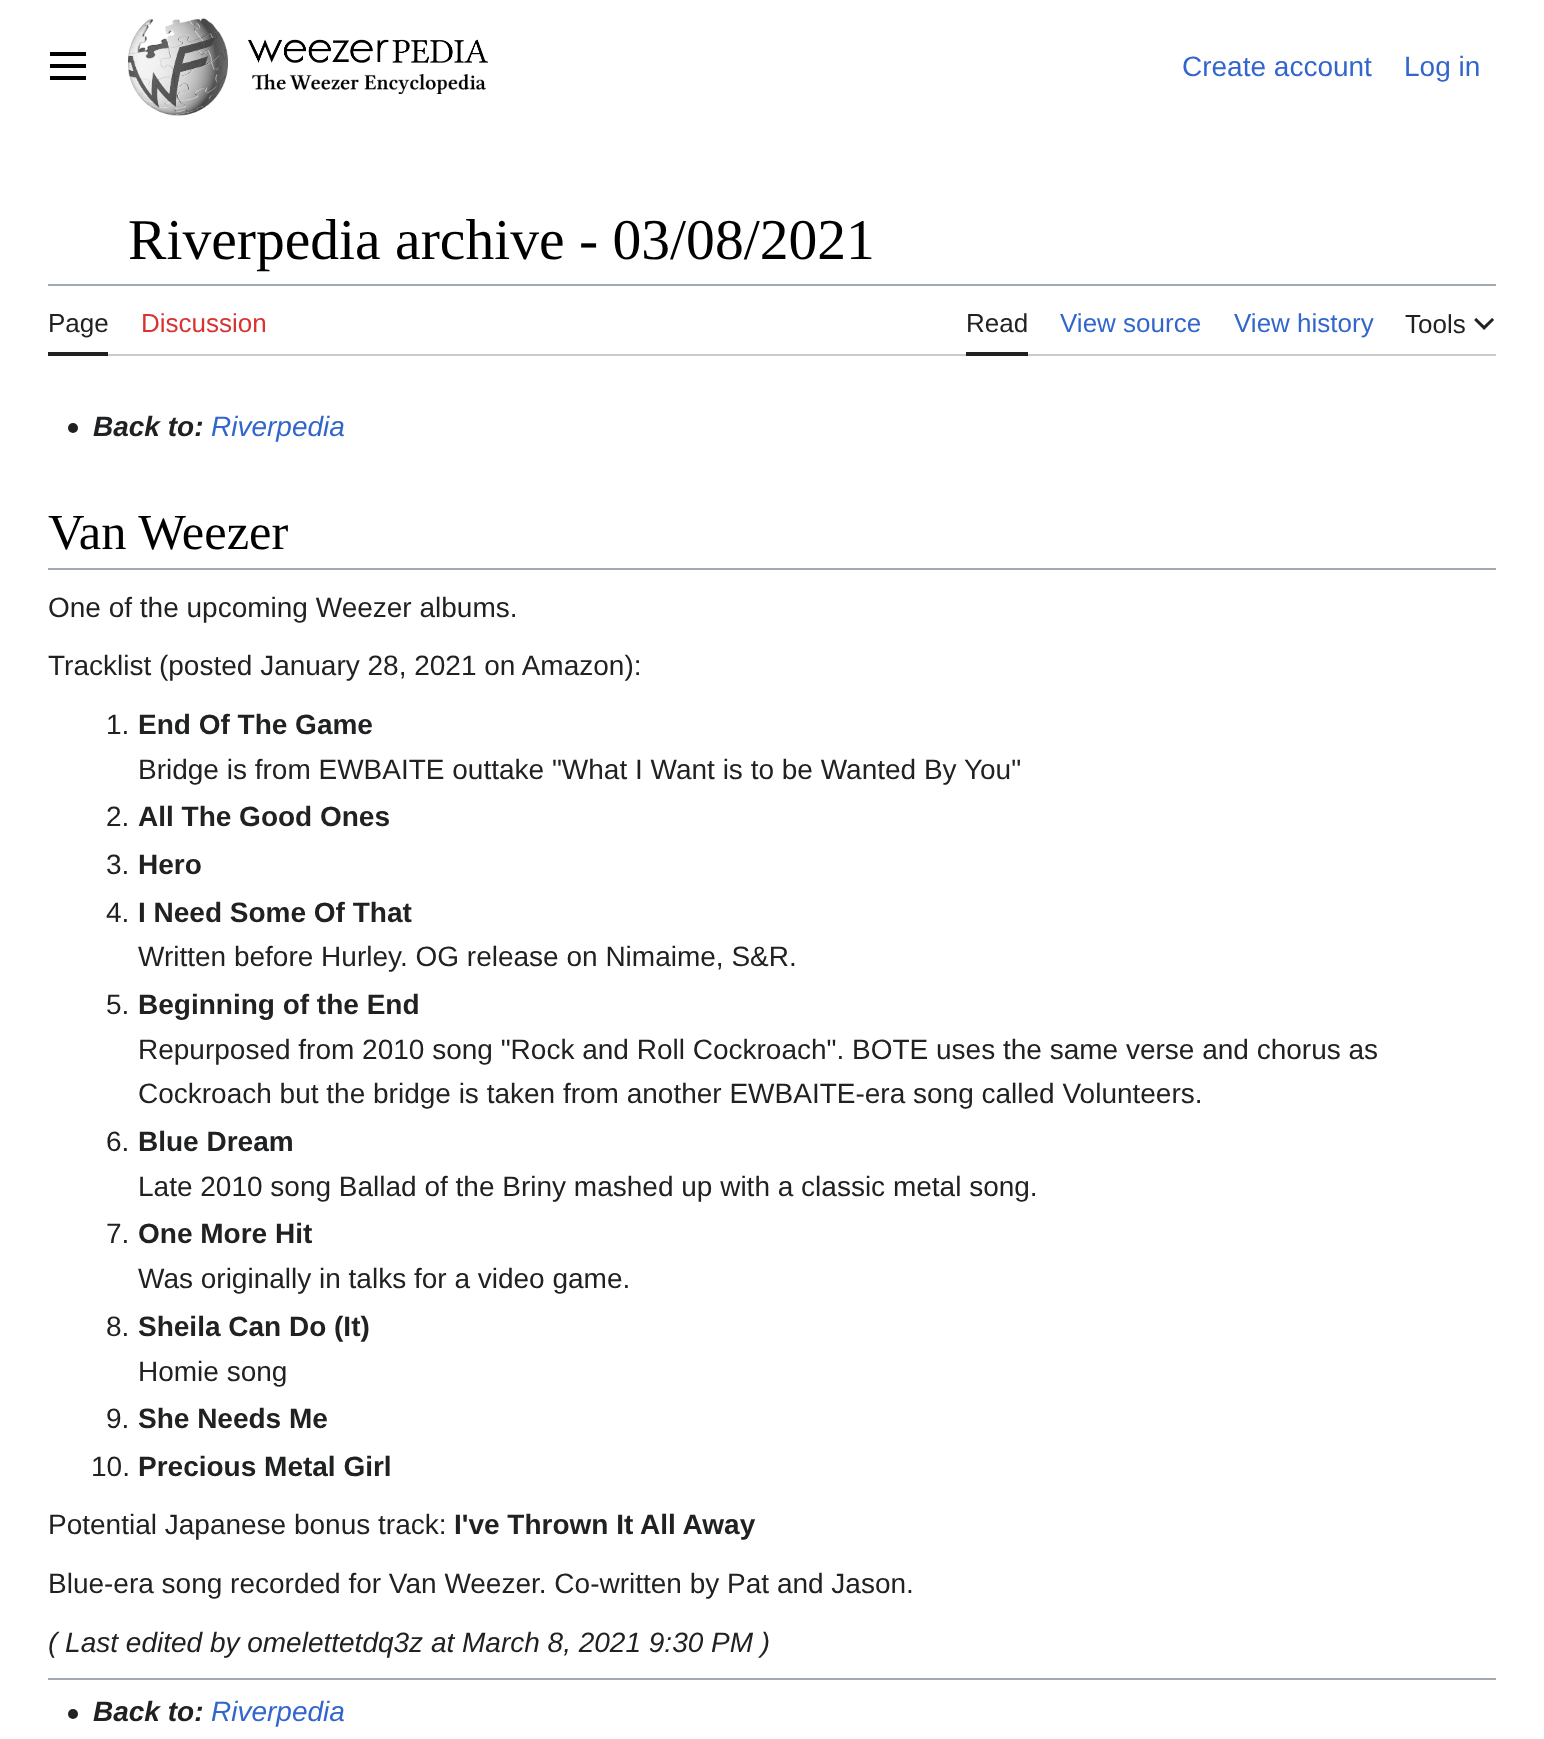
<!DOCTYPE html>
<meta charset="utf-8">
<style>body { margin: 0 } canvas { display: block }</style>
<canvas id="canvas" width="1544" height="1739"></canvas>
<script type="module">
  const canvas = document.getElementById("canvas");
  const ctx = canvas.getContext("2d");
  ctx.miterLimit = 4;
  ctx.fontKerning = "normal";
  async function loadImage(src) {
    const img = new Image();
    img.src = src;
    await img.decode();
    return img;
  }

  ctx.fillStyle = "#ffffff";
  ctx.fillRect(0, 0, 1544, 1739);
  ctx.drawImage(await loadImage("img1.png"), 50, 52, 36, 28);
  ctx.drawImage(await loadImage("img2.png"), 128, 18, 100, 98);
  ctx.drawImage(await loadImage("img3.png"), 248, 39, 240, 24);
  ctx.drawImage(await loadImage("img4.png"), 252, 74, 234, 20);
  ctx.font = "28px Liberation Sans";
  ctx.fillStyle = "#3366cc";
  ctx.fillText("Create account", 1182, 76);
  ctx.fillText("Log in", 1404, 76);
  ctx.fillStyle = "#a2a9b1";
  ctx.fillRect(48, 284, 1448, 2);
  ctx.font = "57.6px Liberation Serif";
  ctx.fillStyle = "#000000";
  ctx.fillText("Riverpedia archive - 03/08/2021", 128, 259);
  ctx.fillStyle = "#c8ccd1";
  ctx.fillRect(108, 354, 1388, 2);
  ctx.fillStyle = "#202122";
  ctx.fillRect(48, 352, 60, 4);
  ctx.font = "26px Liberation Sans";
  ctx.fillText("Page", 48, 332);
  ctx.fillStyle = "#d73333";
  ctx.fillText("Discussion", 141, 332);
  ctx.fillStyle = "#202122";
  ctx.fillRect(966, 352, 62, 4);
  ctx.fillText("Read", 966, 332);
  ctx.fillStyle = "#3366cc";
  ctx.fillText("View source", 1060, 332);
  ctx.fillText("View history", 1234, 332);
  ctx.fillStyle = "#202122";
  ctx.fillText("Tools", 1405, 333);
  ctx.drawImage(await loadImage("img5.png"), 1474, 318, 20, 12);
  ctx.drawImage(await loadImage("img6.png"), 68, 423, 10, 10);
  ctx.font = "italic bold 28px Liberation Sans";
  ctx.fillText("Back to:", 93, 436);
  ctx.font = "italic 28px Liberation Sans";
  ctx.fillStyle = "#3366cc";
  ctx.fillText("Riverpedia", 211, 436);
  ctx.fillStyle = "#a2a9b1";
  ctx.fillRect(48, 568, 1448, 2);
  ctx.font = "50.5px Liberation Serif";
  ctx.fillStyle = "#000000";
  ctx.fillText("Van Weezer", 48, 549);
  ctx.font = "28px Liberation Sans";
  ctx.fillStyle = "#202122";
  ctx.fillText("One of the upcoming Weezer albums.", 48, 617);
  ctx.fillText("Tracklist (posted January 28, 2021 on Amazon):", 48, 675);
  ctx.fillText("1.", 106, 734);
  ctx.font = "bold 28px Liberation Sans";
  ctx.fillText("End Of The Game", 138, 734);
  ctx.font = "28px Liberation Sans";
  ctx.fillText("Bridge is from EWBAITE outtake \"What I Want is to be Wanted By You\"", 138, 779);
  ctx.fillText("2.", 106, 826);
  ctx.font = "bold 28px Liberation Sans";
  ctx.fillText("All The Good Ones", 138, 826);
  ctx.font = "28px Liberation Sans";
  ctx.fillText("3.", 106, 874);
  ctx.font = "bold 28px Liberation Sans";
  ctx.fillText("Hero", 138, 874);
  ctx.font = "28px Liberation Sans";
  ctx.fillText("4.", 106, 922);
  ctx.font = "bold 28px Liberation Sans";
  ctx.fillText("I Need Some Of That", 138, 922);
  ctx.font = "28px Liberation Sans";
  ctx.fillText("Written before Hurley. OG release on Nimaime, S&R.", 138, 966);
  ctx.fillText("5.", 106, 1014);
  ctx.font = "bold 28px Liberation Sans";
  ctx.fillText("Beginning of the End", 138, 1014);
  ctx.font = "28px Liberation Sans";
  ctx.fillText("Repurposed from 2010 song \"Rock and Roll Cockroach\". BOTE uses the same verse and chorus as", 138, 1059);
  ctx.fillText("Cockroach but the bridge is taken from another EWBAITE-era song called Volunteers.", 138, 1103);
  ctx.fillText("6.", 106, 1151);
  ctx.font = "bold 28px Liberation Sans";
  ctx.fillText("Blue Dream", 138, 1151);
  ctx.font = "28px Liberation Sans";
  ctx.fillText("Late 2010 song Ballad of the Briny mashed up with a classic metal song.", 138, 1196);
  ctx.fillText("7.", 106, 1243);
  ctx.font = "bold 28px Liberation Sans";
  ctx.fillText("One More Hit", 138, 1243);
  ctx.font = "28px Liberation Sans";
  ctx.fillText("Was originally in talks for a video game.", 138, 1288);
  ctx.fillText("8.", 106, 1336);
  ctx.font = "bold 28px Liberation Sans";
  ctx.fillText("Sheila Can Do (It)", 138, 1336);
  ctx.font = "28px Liberation Sans";
  ctx.fillText("Homie song", 138, 1381);
  ctx.fillText("9.", 106, 1428);
  ctx.font = "bold 28px Liberation Sans";
  ctx.fillText("She Needs Me", 138, 1428);
  ctx.font = "28px Liberation Sans";
  ctx.fillText("10.", 91, 1476);
  ctx.font = "bold 28px Liberation Sans";
  ctx.fillText("Precious Metal Girl", 138, 1476);
  ctx.font = "28px Liberation Sans";
  ctx.fillText("Potential Japanese bonus track:", 48, 1534);
  ctx.font = "bold 28px Liberation Sans";
  ctx.fillText("I've Thrown It All Away", 454, 1534);
  ctx.font = "28px Liberation Sans";
  ctx.fillText("Blue-era song recorded for Van Weezer. Co-written by Pat and Jason.", 48, 1593);
  ctx.font = "italic 28px Liberation Sans";
  ctx.fillText("( Last edited by omelettetdq3z at March 8, 2021 9:30 PM )", 48, 1652);
  ctx.fillStyle = "#a2a9b1";
  ctx.fillRect(48, 1678, 1448, 2);
  ctx.drawImage(await loadImage("img6.png"), 68, 1709, 10, 10);
  ctx.font = "italic bold 28px Liberation Sans";
  ctx.fillStyle = "#202122";
  ctx.fillText("Back to:", 93, 1721);
  ctx.font = "italic 28px Liberation Sans";
  ctx.fillStyle = "#3366cc";
  ctx.fillText("Riverpedia", 211, 1721);
</script>
